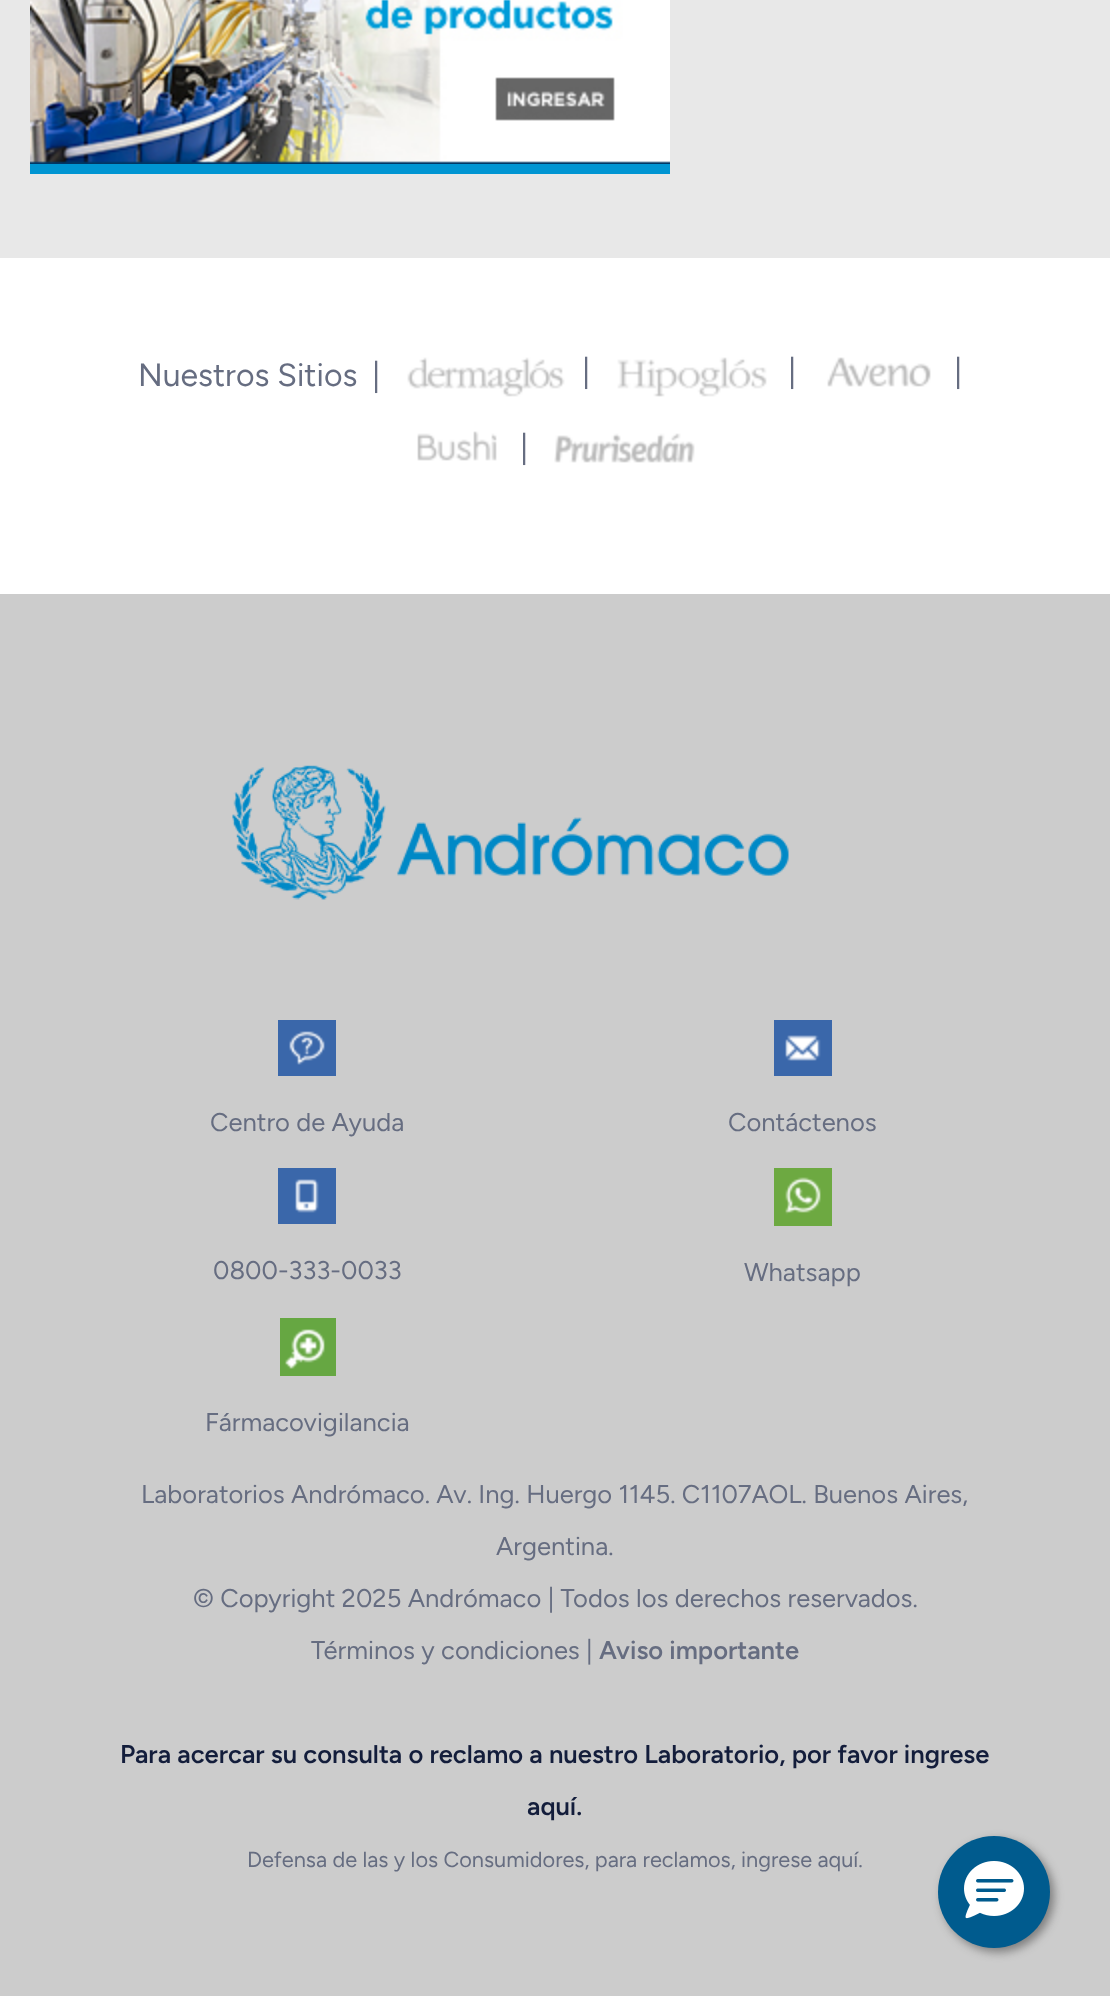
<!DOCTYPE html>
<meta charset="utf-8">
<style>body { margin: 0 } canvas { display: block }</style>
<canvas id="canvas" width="1110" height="1998"></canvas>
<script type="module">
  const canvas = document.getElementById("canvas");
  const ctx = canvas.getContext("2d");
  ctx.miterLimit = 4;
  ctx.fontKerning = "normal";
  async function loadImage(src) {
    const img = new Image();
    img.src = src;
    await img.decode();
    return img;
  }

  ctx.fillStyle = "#ffffff";
  ctx.fillRect(0, 0, 1110, 1998);
  ctx.fillStyle = "#e8e8e8";
  ctx.fillRect(0, 0, 1110, 258);
  ctx.drawImage(await loadImage("img1.png"), 30, 0, 640, 164);
  ctx.fillStyle = "#0095d2";
  ctx.fillRect(30, 164, 640, 10);
  ctx.font = "32px Figtree";
  ctx.fillStyle = "#666d81";
  ctx.fillText("Nuestros Sitios", 138, 386);
  ctx.fillText("|", 372, 386);
  ctx.drawImage(await loadImage("img2.png"), 407, 357, 158, 40);
  ctx.fillText("|", 582, 382);
  ctx.drawImage(await loadImage("img3.png"), 617, 357, 150, 40);
  ctx.fillText("|", 788, 382);
  ctx.drawImage(await loadImage("img4.png"), 827, 357, 104, 30);
  ctx.fillText("|", 954, 382);
  ctx.drawImage(await loadImage("img5.png"), 417, 431, 80, 30);
  ctx.fillText("|", 520, 458);
  ctx.drawImage(await loadImage("img6.png"), 554, 433, 141, 30);
  ctx.fillStyle = "#cccccc";
  ctx.fillRect(0, 594, 1110, 1402);
  ctx.drawImage(await loadImage("img7.png"), 232, 765, 557, 135);
  ctx.drawImage(await loadImage("img8.png"), 278, 1020, 58, 56);
  ctx.font = "25.6px Figtree";
  ctx.fillStyle = "#666d81";
  ctx.fillText("Centro de Ayuda", 210, 1131);
  ctx.drawImage(await loadImage("img9.png"), 774, 1020, 58, 56);
  ctx.fillText("Contáctenos", 728, 1131);
  ctx.drawImage(await loadImage("img10.png"), 278, 1168, 58, 56);
  ctx.fillText("0800-333-0033", 213, 1279);
  ctx.drawImage(await loadImage("img11.png"), 774, 1168, 58, 58);
  ctx.fillText("Whatsapp", 744, 1281);
  ctx.drawImage(await loadImage("img12.png"), 280, 1318, 56, 58);
  ctx.fillText("Fármacovigilancia", 205, 1431);
  ctx.fillText("Laboratorios Andrómaco. Av. Ing. Huergo 1145. C1107AOL. Buenos Aires,", 141, 1503);
  ctx.fillText("Argentina.", 496, 1555);
  ctx.fillText("© Copyright 2025 Andrómaco | Todos los derechos reservados.", 193, 1607);
  ctx.fillText("Términos y condiciones |", 311, 1659);
  ctx.font = "600 25.6px Figtree";
  ctx.fillText("Aviso importante", 599, 1659);
  ctx.fillStyle = "#131d3b";
  ctx.fillText("Para acercar su consulta o reclamo a nuestro Laboratorio, por favor ingrese", 120, 1763);
  ctx.fillText("aquí.", 527, 1815);
  ctx.font = "21.75px Figtree";
  ctx.fillStyle = "#666d81";
  ctx.fillText("Defensa de las y los Consumidores, para reclamos, ingrese aquí.", 247, 1867);
  ctx.fillStyle = "rgba(45, 45, 45, 0.5)";
  ctx.filter = "blur(5px)";
  ctx.beginPath();
  ctx.roundRect(942, 1840, 112, 112, 56);
  ctx.fill();
  ctx.filter = "none";
  ctx.fillStyle = "#005b8e";
  ctx.beginPath();
  ctx.arc(994, 1892, 56, 0, Math.PI * 2);
  ctx.fill();
  ctx.drawImage(await loadImage("img13.png"), 964, 1861, 60, 58);
</script>
